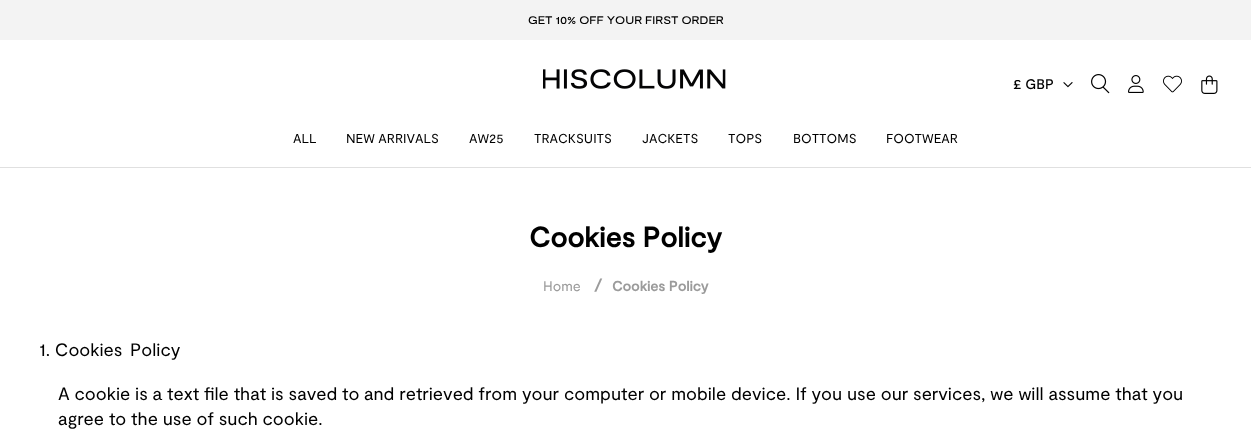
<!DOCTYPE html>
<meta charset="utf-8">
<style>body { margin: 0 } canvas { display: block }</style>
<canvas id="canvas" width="1251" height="441"></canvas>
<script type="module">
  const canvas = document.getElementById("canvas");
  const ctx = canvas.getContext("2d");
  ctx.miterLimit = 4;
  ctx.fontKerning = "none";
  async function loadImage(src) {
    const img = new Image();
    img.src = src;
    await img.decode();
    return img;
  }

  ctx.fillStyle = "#ffffff";
  ctx.fillRect(0, 0, 1251, 441);
  ctx.fillStyle = "#e0e0e0";
  ctx.fillRect(0, 167, 1251, 1);
  ctx.fillStyle = "#f3f3f3";
  ctx.fillRect(0, 0, 1251, 40);
  ctx.font = "500 11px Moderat";
  ctx.fillStyle = "#000000";
  ctx.fillText("GET 10% OFF YOUR FIRST ORDER", 528, 24);
  ctx.drawImage(await loadImage("img1.png"), 543, 69, 183, 20);
  ctx.font = "500 14px 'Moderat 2'";
  ctx.fillText("£ GBP", 1013, 89);
  ctx.drawImage(await loadImage("img2.png"), 1063, 82, 10, 6);
  ctx.drawImage(await loadImage("img3.png"), 1091, 74, 19, 20);
  ctx.drawImage(await loadImage("img4.png"), 1128, 75, 16, 18);
  ctx.drawImage(await loadImage("img5.png"), 1163, 75, 19, 18);
  ctx.drawImage(await loadImage("img6.png"), 1201, 75, 17, 19);
  ctx.font = "13px Moderat";
  ctx.fillText("ALL", 293, 143);
  ctx.fillText("NEW ARRIVALS", 346, 143);
  ctx.fillText("AW25", 469, 143);
  ctx.fillText("TRACKSUITS", 534, 143);
  ctx.fillText("JACKETS", 642, 143);
  ctx.fillText("TOPS", 728, 143);
  ctx.fillText("BOTTOMS", 793, 143);
  ctx.fillText("FOOTWEAR", 886, 143);
  ctx.font = "bold 28px Moderat";
  ctx.fillText("Cookies Policy", 529, 247);
  ctx.font = "14px Moderat";
  ctx.fillStyle = "#9b9b9b";
  ctx.fillText("Home", 543, 291);
  ctx.font = "bold 16px Moderat";
  ctx.fillText("/", 594, 291);
  ctx.font = "bold 14px Moderat";
  ctx.fillText("Cookies Policy", 612, 291);
  ctx.font = "18px Moderat";
  ctx.fillStyle = "#000000";
  ctx.fillText("1. Cookies", 39, 356);
  ctx.fillText("Policy", 130, 356);
  ctx.fillText("A cookie is a text file that is saved to", 58, 400);
  ctx.fillText("and retrieved from your", 364, 400);
  ctx.fillText("computer or mobile device. If you", 564, 400);
  ctx.fillText("use our services, we will assume that you", 847, 400);
  ctx.fillText("agree to the use of such cookie.", 58, 425);
</script>
